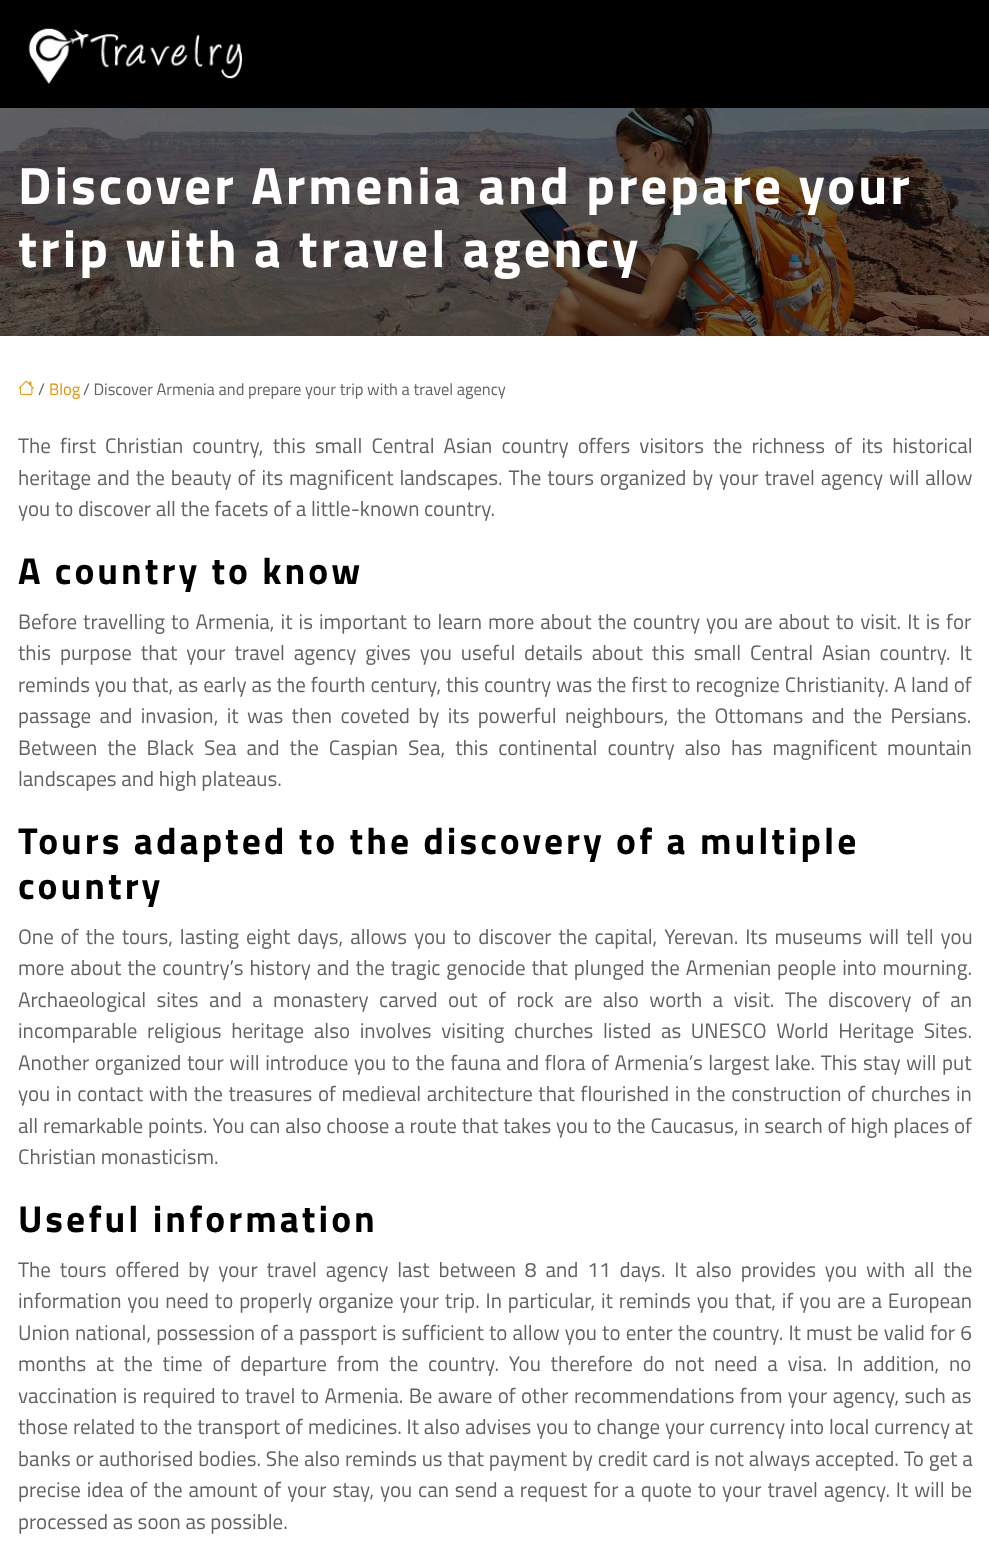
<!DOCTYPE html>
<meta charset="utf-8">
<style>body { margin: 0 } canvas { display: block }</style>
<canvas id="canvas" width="989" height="1561"></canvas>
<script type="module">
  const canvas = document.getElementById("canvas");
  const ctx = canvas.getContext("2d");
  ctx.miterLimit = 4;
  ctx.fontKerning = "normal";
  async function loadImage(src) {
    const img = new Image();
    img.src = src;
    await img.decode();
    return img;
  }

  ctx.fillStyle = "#ffffff";
  ctx.fillRect(0, 0, 989, 1561);
  ctx.fillStyle = "#000000";
  ctx.fillRect(0, 0, 989, 108);
  ctx.drawImage(await loadImage("img1.png"), 28, 28, 214, 57);
  ctx.drawImage(await loadImage("img2.png"), 0, 108, 989, 228);
  ctx.letterSpacing = "3px";
  ctx.font = "bold 52.5px Titillium Web";
  ctx.fillStyle = "#ffffff";
  ctx.fillText("Discover Armenia and prepare your", 18, 204);
  ctx.fillText("trip with a travel agency", 18, 267);
  ctx.drawImage(await loadImage("img3.png"), 18, 380, 16, 15);
  ctx.letterSpacing = "0px";
  ctx.font = "16.5px Titillium Web";
  ctx.fillStyle = "#626262";
  ctx.fillText("/", 38, 395);
  ctx.fillStyle = "#e79301";
  ctx.fillText("Blog", 49, 395);
  ctx.fillStyle = "#626262";
  ctx.fillText("/ Discover Armenia and prepare your trip with a travel agency", 83, 395);
  ctx.wordSpacing = "4.5px";
  ctx.font = "21px Titillium Web";
  ctx.fillText("The first Christian country, this small Central Asian country offers visitors the richness of its historical", 18, 453);
  ctx.wordSpacing = "1.25px";
  ctx.fillText("heritage and the beauty of its magnificent landscapes. The tours organized by your travel agency will allow", 18, 485);
  ctx.wordSpacing = "0px";
  ctx.fillText("you to discover all the facets of a little-known country.", 18, 516);
  ctx.letterSpacing = "3px";
  ctx.font = "bold 37.5px Titillium Web";
  ctx.fillStyle = "#000000";
  ctx.fillText("A country to know", 18, 584);
  ctx.letterSpacing = "0px";
  ctx.wordSpacing = "1.4px";
  ctx.font = "21px Titillium Web";
  ctx.fillStyle = "#626262";
  ctx.fillText("Before travelling to Armenia, it is important to learn more about the country you are about to visit. It is for", 18, 629);
  ctx.wordSpacing = "4.25px";
  ctx.fillText("this purpose that your travel agency gives you useful details about this small Central Asian country. It", 18, 660);
  ctx.wordSpacing = "0.25px";
  ctx.fillText("reminds you that, as early as the fourth century, this country was the first to recognize Christianity. A land of", 18, 692);
  ctx.wordSpacing = "3.75px";
  ctx.fillText("passage and invasion, it was then coveted by its powerful neighbours, the Ottomans and the Persians.", 18, 723);
  ctx.wordSpacing = "5.4px";
  ctx.fillText("Between the Black Sea and the Caspian Sea, this continental country also has magnificent mountain", 18, 755);
  ctx.wordSpacing = "0px";
  ctx.fillText("landscapes and high plateaus.", 18, 786);
  ctx.letterSpacing = "3px";
  ctx.font = "bold 37.5px Titillium Web";
  ctx.fillStyle = "#000000";
  ctx.fillText("Tours adapted to the discovery of a multiple", 18, 854);
  ctx.fillText("country", 18, 899);
  ctx.letterSpacing = "0px";
  ctx.wordSpacing = "2.25px";
  ctx.font = "21px Titillium Web";
  ctx.fillStyle = "#626262";
  ctx.fillText("One of the tours, lasting eight days, allows you to discover the capital, Yerevan. Its museums will tell you", 18, 944);
  ctx.wordSpacing = "1.25px";
  ctx.fillText("more about the country’s history and the tragic genocide that plunged the Armenian people into mourning.", 18, 975);
  ctx.wordSpacing = "5.75px";
  ctx.fillText("Archaeological sites and a monastery carved out of rock are also worth a visit. The discovery of an", 18, 1007);
  ctx.wordSpacing = "5px";
  ctx.fillText("incomparable religious heritage also involves visiting churches listed as UNESCO World Heritage Sites.", 18, 1038);
  ctx.wordSpacing = "0.9px";
  ctx.fillText("Another organized tour will introduce you to the fauna and flora of Armenia’s largest lake. This stay will put", 18, 1070);
  ctx.wordSpacing = "1px";
  ctx.fillText("you in contact with the treasures of medieval architecture that flourished in the construction of churches in", 18, 1101);
  ctx.wordSpacing = "0.25px";
  ctx.fillText("all remarkable points. You can also choose a route that takes you to the Caucasus, in search of high places of", 18, 1133);
  ctx.wordSpacing = "0px";
  ctx.fillText("Christian monasticism.", 18, 1164);
  ctx.letterSpacing = "3px";
  ctx.font = "bold 37.5px Titillium Web";
  ctx.fillStyle = "#000000";
  ctx.fillText("Useful information", 18, 1232);
  ctx.letterSpacing = "0px";
  ctx.wordSpacing = "4.25px";
  ctx.font = "21px Titillium Web";
  ctx.fillStyle = "#626262";
  ctx.fillText("The tours offered by your travel agency last between 8 and 11 days. It also provides you with all the", 18, 1277);
  ctx.wordSpacing = "1.25px";
  ctx.fillText("information you need to properly organize your trip. In particular, it reminds you that, if you are a European", 18, 1308);
  ctx.wordSpacing = "0.5px";
  ctx.fillText("Union national, possession of a passport is sufficient to allow you to enter the country. It must be valid for 6", 18, 1340);
  ctx.wordSpacing = "5.1px";
  ctx.fillText("months at the time of departure from the country. You therefore do not need a visa. In addition, no", 18, 1371);
  ctx.wordSpacing = "0.75px";
  ctx.fillText("vaccination is required to travel to Armenia. Be aware of other recommendations from your agency, such as", 18, 1403);
  ctx.wordSpacing = "0.2px";
  ctx.fillText("those related to the transport of medicines. It also advises you to change your currency into local currency at", 18, 1434);
  ctx.fillText("banks or authorised bodies. She also reminds us that payment by credit card is not always accepted. To get a", 18, 1466);
  ctx.wordSpacing = "1.25px";
  ctx.fillText("precise idea of the amount of your stay, you can send a request for a quote to your travel agency. It will be", 18, 1497);
  ctx.wordSpacing = "0px";
  ctx.fillText("processed as soon as possible.", 18, 1529);
</script>
